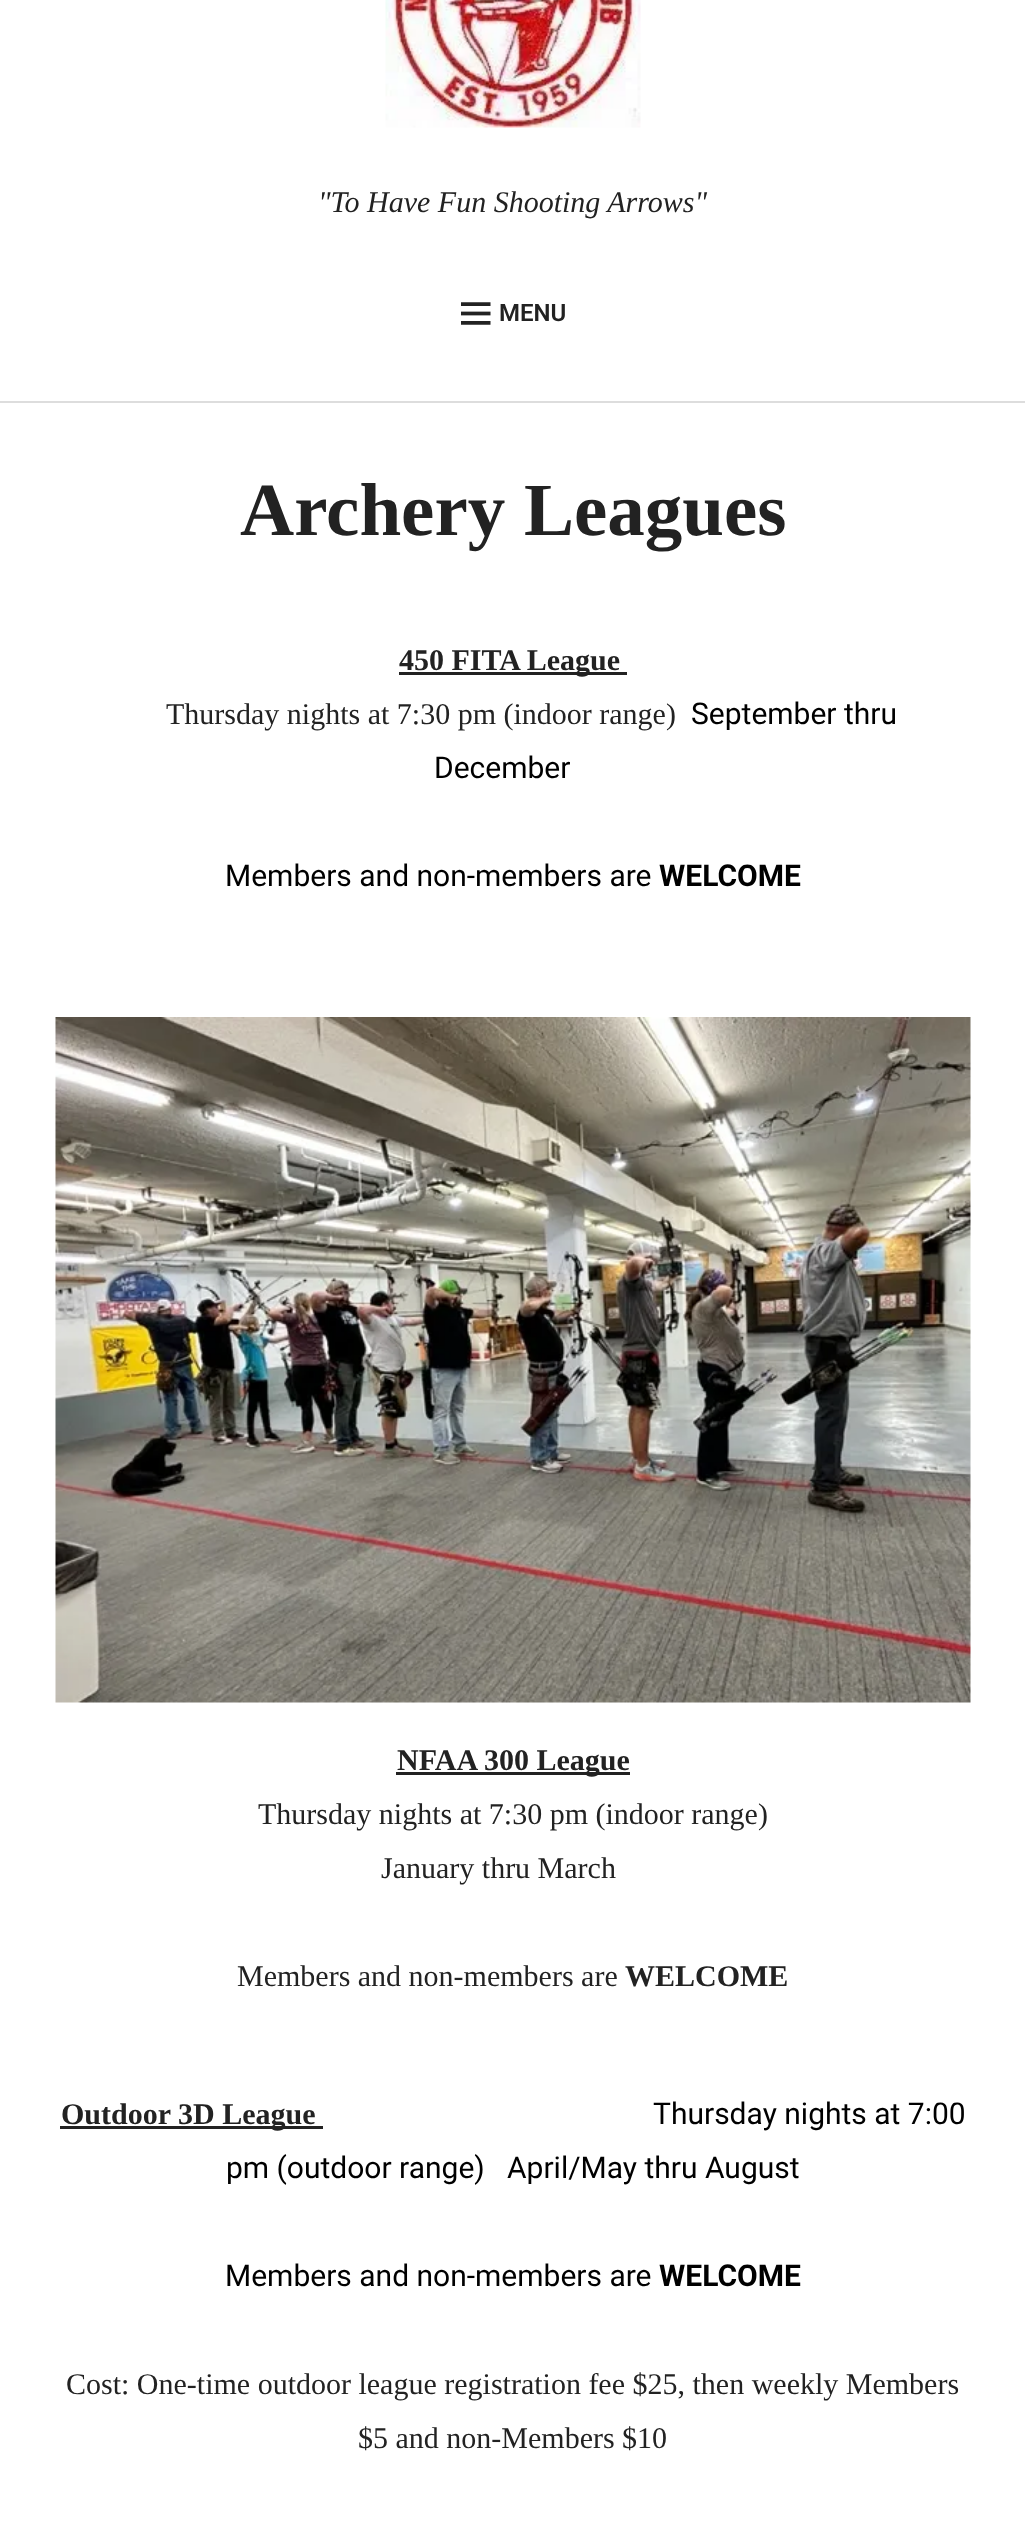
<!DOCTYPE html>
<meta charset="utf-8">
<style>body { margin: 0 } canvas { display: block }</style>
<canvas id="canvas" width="1025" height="2526"></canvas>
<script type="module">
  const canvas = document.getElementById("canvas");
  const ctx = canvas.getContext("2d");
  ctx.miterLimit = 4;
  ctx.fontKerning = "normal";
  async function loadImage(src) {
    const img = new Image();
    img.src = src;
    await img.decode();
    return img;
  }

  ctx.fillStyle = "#ffffff";
  ctx.fillRect(0, 0, 1025, 2526);
  ctx.fillStyle = "#dddddd";
  ctx.fillRect(0, 401, 1025, 2);
  ctx.drawImage(await loadImage("img1.png"), 385, 0, 256, 128);
  ctx.font = "italic 30px Liberation Serif";
  ctx.fillStyle = "#222222";
  ctx.fillText("\"To Have Fun Shooting Arrows\"", 318, 212);
  ctx.drawImage(await loadImage("img2.png"), 461, 302, 30, 23);
  ctx.font = "600 24px Roboto";
  ctx.fillText("MENU", 499, 321);
  ctx.font = "bold 75px Liberation Serif";
  ctx.fillText("Archery Leagues", 240, 535);
  ctx.fillRect(399, 672, 228, 3);
  ctx.font = "bold 30px Liberation Serif";
  ctx.fillText("450 FITA League", 399, 670);
  ctx.font = "30px Liberation Serif";
  ctx.fillText("Thursday nights at 7:30 pm (indoor range)", 166, 724);
  ctx.font = "30px Roboto";
  ctx.fillStyle = "#000000";
  ctx.fillText("September thru", 691, 724);
  ctx.fillText("December", 434, 778);
  ctx.fillText("Members and non-members are", 225, 886);
  ctx.font = "bold 30px Roboto";
  ctx.fillText("WELCOME", 659, 886);
  ctx.drawImage(await loadImage("img3.png"), 55, 1017, 916, 686);
  ctx.fillStyle = "#222222";
  ctx.fillRect(396, 1772, 234, 3);
  ctx.font = "bold 30px Liberation Serif";
  ctx.fillText("NFAA 300 League", 397, 1770);
  ctx.font = "30px Liberation Serif";
  ctx.fillText("Thursday nights at 7:30 pm (indoor range)", 258, 1824);
  ctx.fillText("January thru March", 381, 1878);
  ctx.fillText("Members and non-members are", 237, 1986);
  ctx.font = "bold 30px Liberation Serif";
  ctx.fillText("WELCOME", 625, 1986);
  ctx.fillText("Outdoor", 61, 2124);
  ctx.fillRect(60, 2126, 263, 3);
  ctx.fillText("3D League", 178, 2124);
  ctx.font = "30px Roboto";
  ctx.fillStyle = "#000000";
  ctx.fillText("Thursday nights at 7:00", 653, 2124);
  ctx.fillText("pm (outdoor range)", 226, 2178);
  ctx.fillText("April/May thru August", 507, 2178);
  ctx.fillText("Members and non-members are", 225, 2286);
  ctx.font = "bold 30px Roboto";
  ctx.fillText("WELCOME", 659, 2286);
  ctx.font = "30px Liberation Serif";
  ctx.fillStyle = "#222222";
  ctx.fillText("Cost: One-time outdoor league registration fee $25, then weekly Members", 66, 2394);
  ctx.fillText("$5 and non-Members $10", 358, 2448);
</script>
